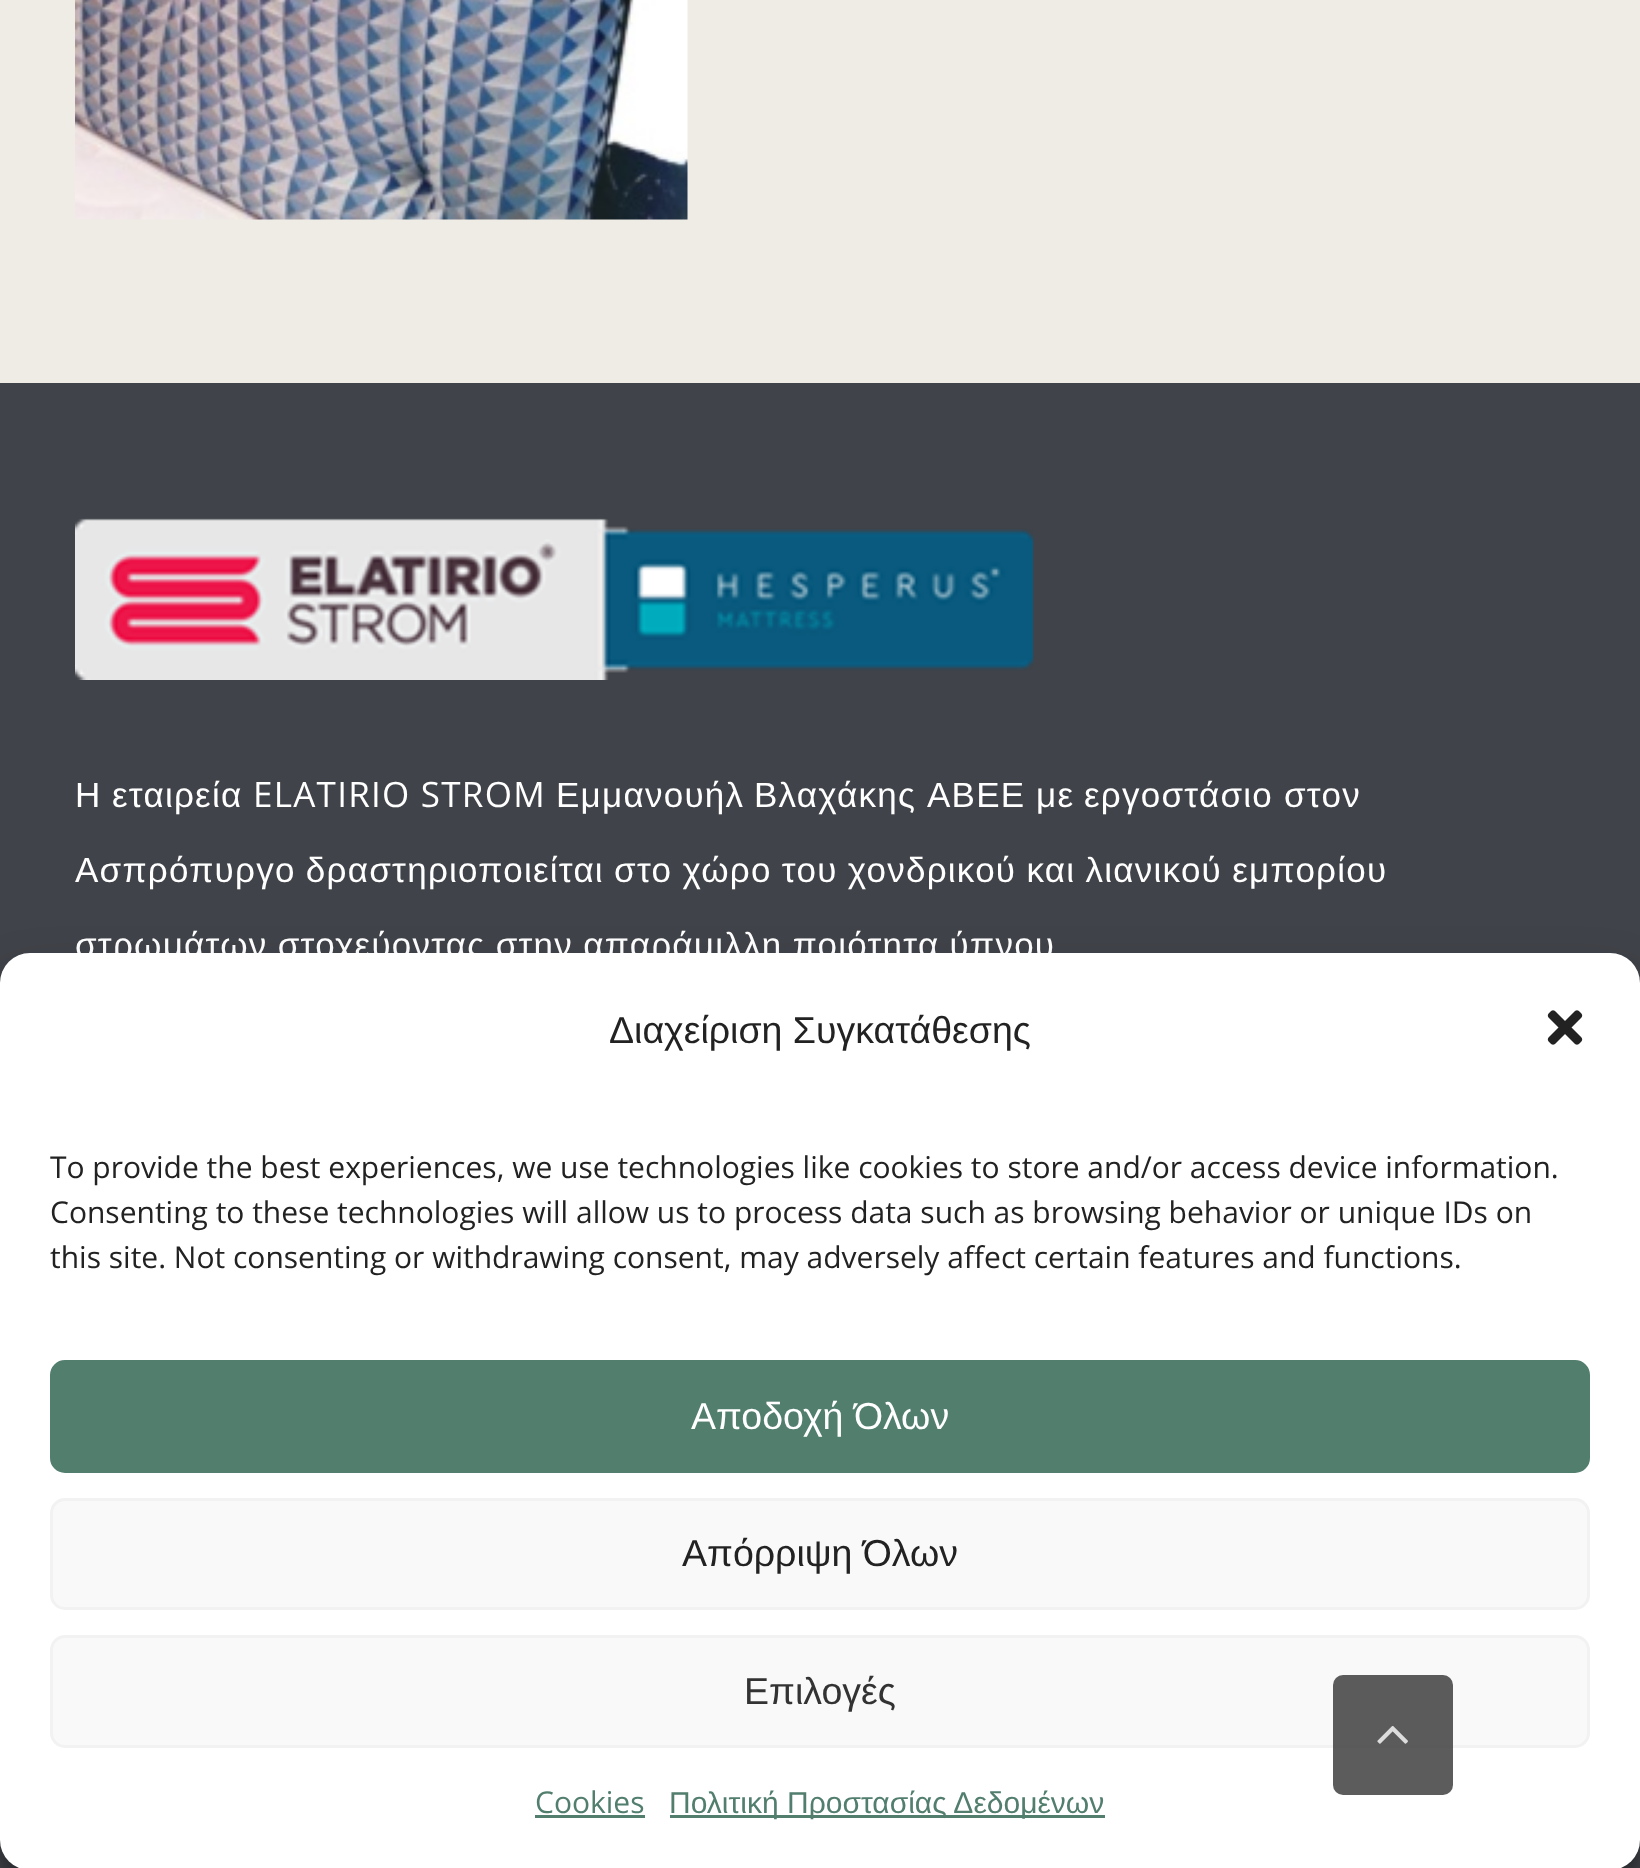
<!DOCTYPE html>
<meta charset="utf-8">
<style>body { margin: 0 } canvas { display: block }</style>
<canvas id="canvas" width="1640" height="1868"></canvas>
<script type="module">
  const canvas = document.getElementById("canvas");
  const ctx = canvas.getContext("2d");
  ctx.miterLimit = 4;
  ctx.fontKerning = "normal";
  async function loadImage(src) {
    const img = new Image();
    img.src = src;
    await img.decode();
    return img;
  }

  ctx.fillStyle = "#efece5";
  ctx.fillRect(0, 0, 1640, 1868);
  ctx.drawImage(await loadImage("img1.png"), 75, 0, 613, 220);
  ctx.fillStyle = "#404349";
  ctx.fillRect(0, 383, 1640, 1485);
  ctx.drawImage(await loadImage("img2.png"), 75, 518, 958, 162);
  ctx.letterSpacing = "1.25px";
  ctx.font = "35px Liberation Sans";
  ctx.fillStyle = "#ffffff";
  ctx.fillText("Η", 75, 807);
  ctx.fillText("εταιρεία", 112, 807);
  ctx.font = "35px Open Sans";
  ctx.fillText("ELATIRIO STROM", 253, 807);
  ctx.font = "35px Liberation Sans";
  ctx.fillText("Εμμανουήλ", 556, 807);
  ctx.fillText("Βλαχάκης", 754, 807);
  ctx.fillText("ΑΒΕΕ", 927, 807);
  ctx.fillText("με", 1036, 807);
  ctx.fillText("εργοστάσιο", 1084, 807);
  ctx.fillText("στον", 1284, 807);
  ctx.wordSpacing = "-0.75px";
  ctx.fillText("Ασπρόπυργο δραστηριοποιείται στο χώρο του χονδρικού και λιανικού εμπορίου", 75, 882);
  ctx.fillText("στρωμάτων στοχεύοντας στην απαράμιλλη ποιότητα ύπνου", 75, 957);
  ctx.fillStyle = "rgba(0, 0, 0, 0.23)";
  ctx.filter = "blur(7.5px)";
  ctx.beginPath();
  ctx.roundRect(0, 968, 1640, 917, 30);
  ctx.fill();
  ctx.filter = "none";
  ctx.fillStyle = "rgba(0, 0, 0, 0.19)";
  ctx.filter = "blur(25px)";
  ctx.beginPath();
  ctx.roundRect(0, 978, 1640, 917, 30);
  ctx.fill();
  ctx.filter = "none";
  ctx.fillStyle = "#808080";
  ctx.filter = "blur(6px)";
  ctx.beginPath();
  ctx.roundRect(1465, 1685, 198, 150, 5);
  ctx.fill();
  ctx.filter = "none";
  ctx.fillStyle = "#ffffff";
  ctx.beginPath();
  ctx.roundRect(0, 953, 1640, 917, 30);
  ctx.fill();
  ctx.letterSpacing = "0px";
  ctx.wordSpacing = "0px";
  ctx.font = "37.5px Liberation Sans";
  ctx.fillStyle = "#222222";
  ctx.fillText("Διαχείριση Συγκατάθεσης", 609, 1043);
  ctx.drawImage(await loadImage("img3.png"), 1547, 1010, 36, 35);
  ctx.font = "30px Open Sans";
  ctx.fillText("To provide the best experiences, we use technologies like cookies to store and/or access device information.", 50, 1178);
  ctx.fillText("Consenting to these technologies will allow us to process data such as browsing behavior or unique IDs on", 50, 1223);
  ctx.fillText("this site. Not consenting or withdrawing consent, may adversely affect certain features and functions.", 50, 1268);
  ctx.fillStyle = "#527e6e";
  ctx.beginPath();
  ctx.roundRect(51.5, 1361.5, 1537, 110, 13.5);
  ctx.fill();
  ctx.strokeStyle = "#527e6e";
  ctx.lineWidth = 3;
  ctx.stroke();
  ctx.font = "37.5px Liberation Sans";
  ctx.fillStyle = "#ffffff";
  ctx.fillText("Αποδοχή Όλων", 691, 1429);
  ctx.fillStyle = "#f9f9f9";
  ctx.beginPath();
  ctx.roundRect(51.5, 1499.5, 1537, 109, 13.5);
  ctx.fill();
  ctx.strokeStyle = "#f2f2f2";
  ctx.stroke();
  ctx.fillStyle = "#222222";
  ctx.fillText("Απόρριψη Όλων", 682, 1566);
  ctx.fillStyle = "#f9f9f9";
  ctx.beginPath();
  ctx.roundRect(51.5, 1636.5, 1537, 110, 13.5);
  ctx.fill();
  ctx.stroke();
  ctx.fillStyle = "#333333";
  ctx.fillText("Επιλογές", 744, 1704);
  ctx.font = "30px Open Sans";
  ctx.fillStyle = "#527e6e";
  ctx.fillText("Cookies", 535, 1813);
  ctx.fillRect(535, 1815, 110, 3);
  ctx.fillRect(670, 1815, 435, 3);
  ctx.font = "30px Liberation Sans";
  ctx.fillText("Πολιτική Προστασίας Δεδομένων", 669, 1813);
  ctx.fillStyle = "rgba(51, 51, 51, 0.8)";
  ctx.beginPath();
  ctx.roundRect(1333, 1675, 120, 120, 10);
  ctx.fill();
  ctx.drawImage(await loadImage("img4.png"), 1377, 1726, 31, 18);
</script>
